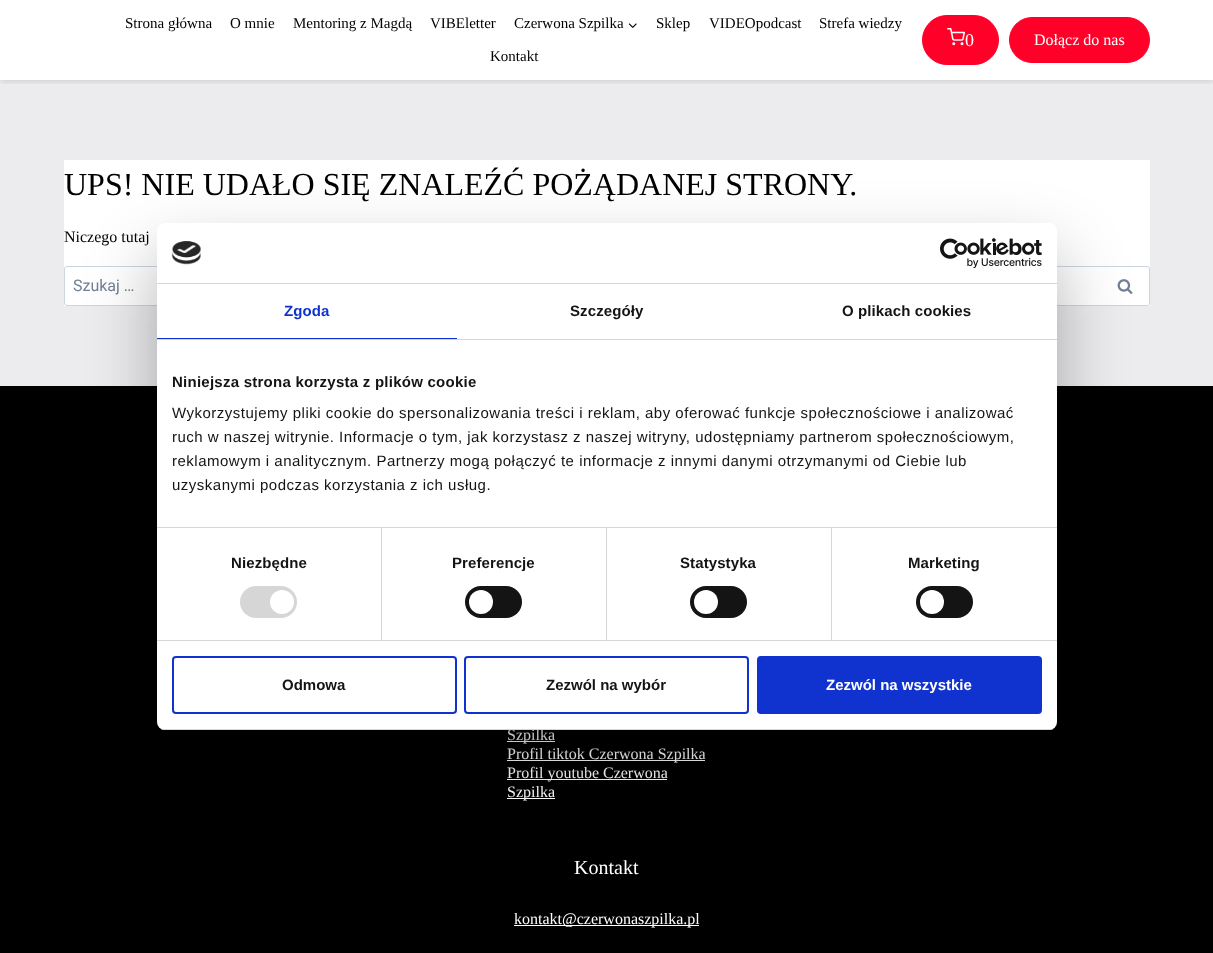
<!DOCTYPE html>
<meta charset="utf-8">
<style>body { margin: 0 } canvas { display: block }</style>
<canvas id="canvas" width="1213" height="953"></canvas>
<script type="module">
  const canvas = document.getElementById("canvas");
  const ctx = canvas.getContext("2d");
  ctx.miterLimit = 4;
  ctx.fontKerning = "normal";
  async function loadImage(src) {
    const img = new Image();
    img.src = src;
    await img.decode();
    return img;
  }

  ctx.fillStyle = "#ececef";
  ctx.fillRect(0, 0, 1213, 953);
  ctx.fillStyle = "#ffffff";
  ctx.fillRect(0, 0, 1213, 80);
  ctx.save();
  ctx.beginPath();
  ctx.rect(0, 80, 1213, 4);
  ctx.clip();
  ctx.fillStyle = "rgba(0, 0, 0, 0.14)";
  ctx.filter = "blur(3px)";
  ctx.beginPath();
  ctx.rect(0, 1, 1213, 80);
  ctx.fill();
  ctx.filter = "none";
  ctx.restore();
  ctx.font = "15px Liberation Serif";
  ctx.fillStyle = "#000000";
  ctx.fillText("Strona główna", 125, 28);
  ctx.fillText("O mnie", 230, 28);
  ctx.fillText("Mentoring z Magdą", 293, 28);
  ctx.fillText("VIBEletter", 430, 28);
  ctx.fillText("Czerwona Szpilka", 514, 28);
  ctx.drawImage(await loadImage("img1.png"), 628, 23, 9, 5);
  ctx.fillText("Sklep", 656, 28);
  ctx.fillText("VIDEOpodcast", 709, 28);
  ctx.fillText("Strefa wiedzy", 819, 28);
  ctx.fillText("Kontakt", 490, 61);
  ctx.fillStyle = "#ff0029";
  ctx.beginPath();
  ctx.roundRect(922.5, 15.5, 76, 49, 24.5);
  ctx.fill();
  ctx.strokeStyle = "#ff0029";
  ctx.stroke();
  ctx.drawImage(await loadImage("img2.png"), 947, 28, 18, 18);
  ctx.font = "18px Liberation Serif";
  ctx.fillStyle = "#ffffff";
  ctx.fillText("0", 965, 46);
  ctx.fillStyle = "#ff0029";
  ctx.beginPath();
  ctx.roundRect(1009.5, 17.5, 140, 45, 22.5);
  ctx.fill();
  ctx.stroke();
  ctx.font = "16px Liberation Serif";
  ctx.fillStyle = "#ffffff";
  ctx.fillText("Dołącz do nas", 1034, 45);
  ctx.fillRect(64, 160, 1086, 146);
  ctx.font = "32px Liberation Serif";
  ctx.fillStyle = "#000000";
  ctx.fillText("UPS! NIE UDAŁO SIĘ ZNALEŹĆ POŻĄDANEJ STRONY.", 64, 195);
  ctx.font = "16px Liberation Serif";
  ctx.fillText("Niczego tutaj", 64, 242);
  ctx.beginPath();
  ctx.roundRect(64.5, 266.5, 1085, 39, 2.5);
  ctx.strokeStyle = "#cbd5e0";
  ctx.stroke();
  ctx.font = "16px Roboto";
  ctx.fillStyle = "#718096";
  ctx.fillText("Szukaj …", 73, 291);
  ctx.drawImage(await loadImage("img3.png"), 1117, 279, 16, 15);
  ctx.fillStyle = "#000000";
  ctx.fillRect(0, 386, 1213, 567);
  ctx.fillStyle = "#ffffff";
  ctx.fillRect(507, 741, 48, 1);
  ctx.font = "16px Liberation Serif";
  ctx.fillText("Szpilka", 507, 740);
  ctx.fillRect(507, 760, 198, 1);
  ctx.fillText("Profil tiktok Czerwona Szpilka", 507, 759);
  ctx.fillRect(507, 779, 160, 1);
  ctx.fillText("Profil youtube Czerwona", 507, 778);
  ctx.fillRect(507, 798, 48, 1);
  ctx.fillText("Szpilka", 507, 797);
  ctx.font = "20px Liberation Serif";
  ctx.fillText("Kontakt", 574, 874);
  ctx.fillRect(514, 925, 185, 1);
  ctx.font = "16px Liberation Serif";
  ctx.fillText("kontakt@czerwonaszpilka.pl", 514, 924);
  ctx.fillStyle = "rgba(0, 0, 0, 0.3)";
  ctx.filter = "blur(34px)";
  ctx.beginPath();
  ctx.roundRect(157, 255, 900, 507, 8);
  ctx.fill();
  ctx.filter = "none";
  ctx.fillStyle = "#ffffff";
  ctx.beginPath();
  ctx.roundRect(157, 223, 900, 507, 8);
  ctx.fill();
  ctx.fillStyle = "#d6d6d6";
  ctx.fillRect(157, 283, 900, 1);
  ctx.drawImage(await loadImage("img4.png"), 171, 241, 30, 24);
  ctx.drawImage(await loadImage("img5.png"), 940, 238, 102, 30);
  ctx.fillRect(157, 339, 900, 1);
  ctx.fillStyle = "#1032cf";
  ctx.fillRect(157, 338, 300, 1);
  ctx.letterSpacing = "0.1px";
  ctx.font = "bold 15px Liberation Sans";
  ctx.fillText("Zgoda", 284, 316);
  ctx.fillStyle = "#141414";
  ctx.fillText("Szczegóły", 570, 316);
  ctx.fillText("O plikach cookies", 842, 316);
  ctx.fillStyle = "#d6d6d6";
  ctx.fillRect(157, 527, 900, 1);
  ctx.letterSpacing = "0.25px";
  ctx.fillStyle = "#141414";
  ctx.fillText("Niniejsza strona korzysta z plików cookie", 172, 387);
  ctx.letterSpacing = "0.5px";
  ctx.font = "15px Liberation Sans";
  ctx.fillText("Wykorzystujemy pliki cookie do spersonalizowania treści i reklam, aby oferować funkcje społecznościowe i analizować", 172, 418);
  ctx.fillText("ruch w naszej witrynie. Informacje o tym, jak korzystasz z naszej witryny, udostępniamy partnerom społecznościowym,", 172, 442);
  ctx.fillText("reklamowym i analitycznym. Partnerzy mogą połączyć te informacje z innymi danymi otrzymanymi od Ciebie lub", 172, 466);
  ctx.fillText("uzyskanymi podczas korzystania z ich usług.", 172, 490);
  ctx.fillStyle = "#d6d6d6";
  ctx.fillRect(157, 640, 900, 1);
  ctx.fillRect(381, 528, 1, 112);
  ctx.letterSpacing = "0.1px";
  ctx.font = "bold 15px Liberation Sans";
  ctx.fillStyle = "#141414";
  ctx.fillText("Niezbędne", 231, 568);
  ctx.fillStyle = "#d6d6d6";
  ctx.beginPath();
  ctx.roundRect(240, 586, 57, 32, 16);
  ctx.fill();
  ctx.fillStyle = "#ffffff";
  ctx.beginPath();
  ctx.arc(282, 602, 12, 0, Math.PI * 2);
  ctx.fill();
  ctx.fillStyle = "#d6d6d6";
  ctx.fillRect(606, 528, 1, 112);
  ctx.fillStyle = "#141414";
  ctx.fillText("Preferencje", 452, 568);
  ctx.beginPath();
  ctx.roundRect(465, 586, 57, 32, 16);
  ctx.fill();
  ctx.fillStyle = "#ffffff";
  ctx.beginPath();
  ctx.arc(481, 602, 12, 0, Math.PI * 2);
  ctx.fill();
  ctx.fillStyle = "#d6d6d6";
  ctx.fillRect(831, 528, 1, 112);
  ctx.fillStyle = "#141414";
  ctx.fillText("Statystyka", 680, 568);
  ctx.beginPath();
  ctx.roundRect(690, 586, 57, 32, 16);
  ctx.fill();
  ctx.fillStyle = "#ffffff";
  ctx.beginPath();
  ctx.arc(706, 602, 12, 0, Math.PI * 2);
  ctx.fill();
  ctx.fillStyle = "#141414";
  ctx.fillText("Marketing", 908, 568);
  ctx.beginPath();
  ctx.roundRect(916, 586, 57, 32, 16);
  ctx.fill();
  ctx.fillStyle = "#ffffff";
  ctx.beginPath();
  ctx.arc(932, 602, 12, 0, Math.PI * 2);
  ctx.fill();
  ctx.save();
  ctx.beginPath();
  ctx.roundRect(157, 223, 900, 507, 8);
  ctx.clip();
  ctx.fillStyle = "#d6d6d6";
  ctx.fillRect(157, 729, 900, 1);
  ctx.restore();
  ctx.beginPath();
  ctx.roundRect(173, 657, 283, 56, 3);
  ctx.strokeStyle = "#1032cf";
  ctx.lineWidth = 2;
  ctx.stroke();
  ctx.letterSpacing = "0px";
  ctx.fillStyle = "#141414";
  ctx.fillText("Odmowa", 282, 690);
  ctx.beginPath();
  ctx.roundRect(465, 657, 283, 56, 3);
  ctx.stroke();
  ctx.fillText("Zezwól na wybór", 546, 690);
  ctx.fillStyle = "#1032cf";
  ctx.beginPath();
  ctx.roundRect(758, 657, 283, 56, 3);
  ctx.fill();
  ctx.stroke();
  ctx.fillStyle = "#ffffff";
  ctx.fillText("Zezwól na wszystkie", 826, 690);
</script>
